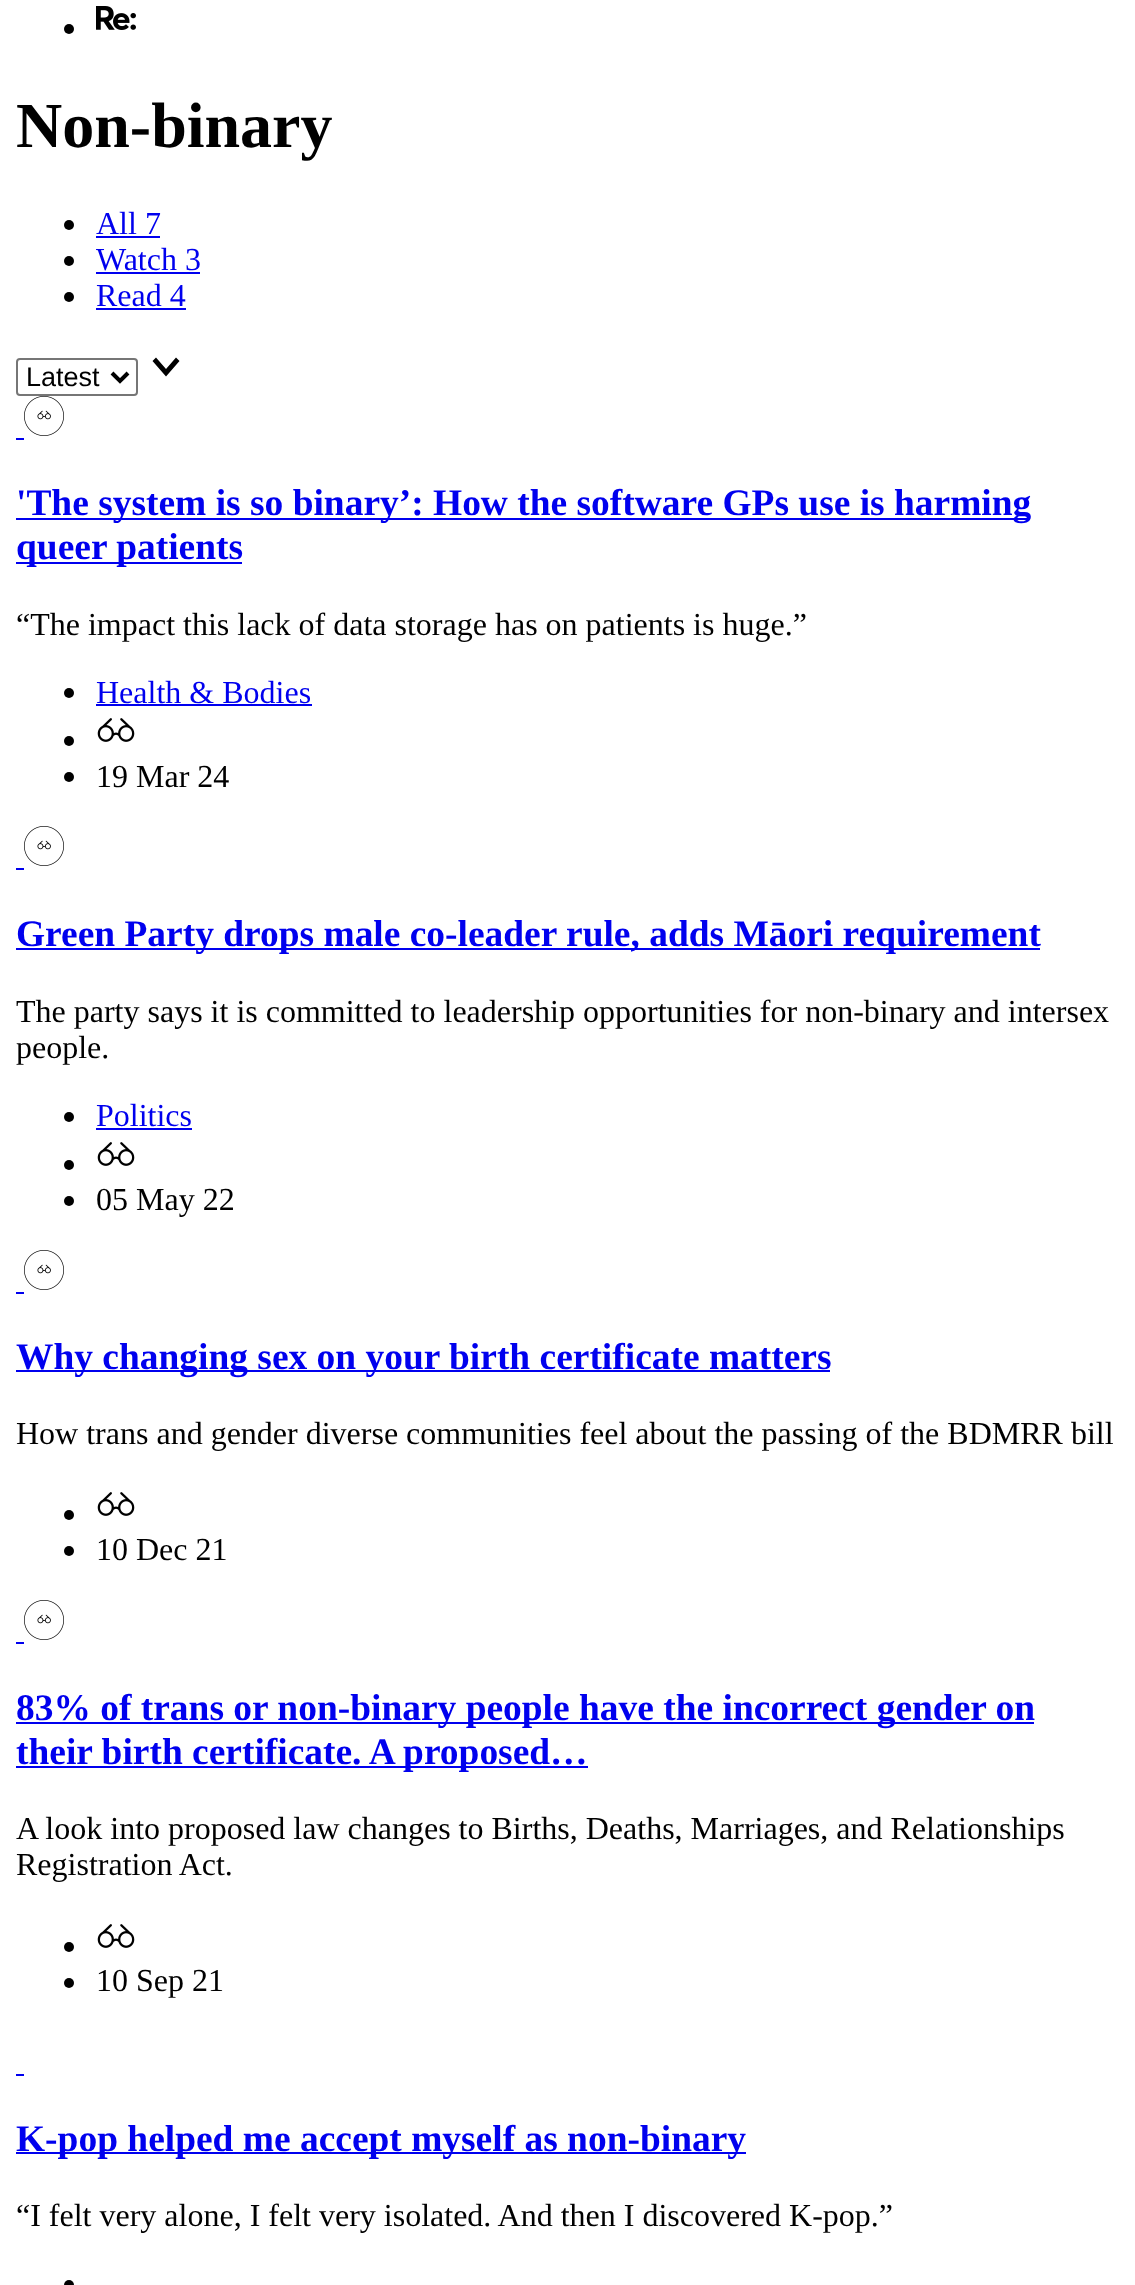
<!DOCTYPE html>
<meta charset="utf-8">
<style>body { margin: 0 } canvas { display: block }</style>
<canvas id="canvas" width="1135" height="2285"></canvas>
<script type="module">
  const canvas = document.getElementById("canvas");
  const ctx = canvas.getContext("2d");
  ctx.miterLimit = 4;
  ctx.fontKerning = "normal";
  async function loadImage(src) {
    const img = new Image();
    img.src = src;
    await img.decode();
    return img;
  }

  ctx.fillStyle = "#ffffff";
  ctx.fillRect(0, 0, 1135, 2285);
  ctx.fillStyle = "#000000";
  ctx.beginPath();
  ctx.arc(69, 29, 5, 0, Math.PI * 2);
  ctx.fill();
  ctx.drawImage(await loadImage("img1.png"), 96, 6, 40, 24);
  ctx.font = "bold 64px Liberation Serif";
  ctx.fillText("Non-binary", 16, 147);
  ctx.beginPath();
  ctx.arc(69, 225, 5, 0, Math.PI * 2);
  ctx.fill();
  ctx.font = "32px Liberation Serif";
  ctx.fillStyle = "#0000ee";
  ctx.fillText("All 7", 96, 234);
  ctx.fillRect(96, 236, 64, 2);
  ctx.fillStyle = "#000000";
  ctx.beginPath();
  ctx.arc(69, 261, 5, 0, Math.PI * 2);
  ctx.fill();
  ctx.fillStyle = "#0000ee";
  ctx.fillText("Watch 3", 96, 270);
  ctx.fillRect(96, 272, 104, 2);
  ctx.fillStyle = "#000000";
  ctx.beginPath();
  ctx.arc(69, 297, 5, 0, Math.PI * 2);
  ctx.fill();
  ctx.fillStyle = "#0000ee";
  ctx.fillText("Read 4", 96, 306);
  ctx.fillRect(96, 308, 90, 2);
  ctx.beginPath();
  ctx.roundRect(17, 359, 120, 36, 3);
  ctx.strokeStyle = "#767676";
  ctx.lineWidth = 2;
  ctx.stroke();
  ctx.beginPath();
  ctx.moveTo(112, 373);
  ctx.lineTo(120, 381);
  ctx.lineTo(128, 373);
  ctx.strokeStyle = "#000000";
  ctx.lineWidth = 4;
  ctx.stroke();
  ctx.font = "27px Liberation Sans";
  ctx.fillStyle = "#000000";
  ctx.fillText("Latest", 26, 386);
  ctx.beginPath();
  ctx.moveTo(176, 357.5);
  ctx.lineTo(179.5, 361);
  ctx.lineTo(166, 376.5);
  ctx.lineTo(152.5, 361);
  ctx.lineTo(156, 357.5);
  ctx.lineTo(166, 369);
  ctx.closePath();
  ctx.fill();
  ctx.drawImage(await loadImage("img2.png"), 24, 396, 40, 40);
  ctx.fillStyle = "#0000ee";
  ctx.fillRect(16, 438, 8, 2);
  ctx.fillRect(16, 518, 1014, 2);
  ctx.font = "bold 37.45px Liberation Serif";
  ctx.fillText("'The system is so binary’: How the software GPs use is harming", 16, 515);
  ctx.fillRect(16, 562, 226, 2);
  ctx.fillText("queer patients", 16, 559);
  ctx.font = "32px Liberation Serif";
  ctx.fillStyle = "#000000";
  ctx.fillText("“The impact this lack of data storage has on patients is huge.”", 16, 635);
  ctx.beginPath();
  ctx.arc(69, 693, 5, 0, Math.PI * 2);
  ctx.fill();
  ctx.fillStyle = "#0000ee";
  ctx.fillText("Health & Bodies", 96, 703);
  ctx.fillRect(96, 704, 216, 2);
  ctx.fillStyle = "#000000";
  ctx.beginPath();
  ctx.arc(69, 741, 5, 0, Math.PI * 2);
  ctx.fill();
  ctx.drawImage(await loadImage("img3.png"), 97, 718, 38, 24);
  ctx.beginPath();
  ctx.arc(69, 777, 5, 0, Math.PI * 2);
  ctx.fill();
  ctx.fillText("19 Mar 24", 96, 787);
  ctx.drawImage(await loadImage("img2.png"), 24, 826, 40, 40);
  ctx.fillStyle = "#0000ee";
  ctx.fillRect(16, 868, 8, 2);
  ctx.fillRect(16, 948, 1024, 2);
  ctx.font = "bold 37.45px Liberation Serif";
  ctx.fillText("Green Party drops male co-leader rule, adds Māori requirement", 16, 946);
  ctx.font = "32px Liberation Serif";
  ctx.fillStyle = "#000000";
  ctx.fillText("The party says it is committed to leadership opportunities for non-binary and intersex", 16, 1022);
  ctx.fillText("people.", 16, 1058);
  ctx.beginPath();
  ctx.arc(69, 1117, 5, 0, Math.PI * 2);
  ctx.fill();
  ctx.fillStyle = "#0000ee";
  ctx.fillText("Politics", 96, 1126);
  ctx.fillRect(96, 1128, 96, 2);
  ctx.fillStyle = "#000000";
  ctx.beginPath();
  ctx.arc(69, 1165, 5, 0, Math.PI * 2);
  ctx.fill();
  ctx.drawImage(await loadImage("img3.png"), 97, 1142, 38, 24);
  ctx.beginPath();
  ctx.arc(69, 1201, 5, 0, Math.PI * 2);
  ctx.fill();
  ctx.fillText("05 May 22", 96, 1210);
  ctx.drawImage(await loadImage("img2.png"), 24, 1250, 40, 40);
  ctx.fillStyle = "#0000ee";
  ctx.fillRect(16, 1292, 8, 2);
  ctx.fillRect(16, 1370, 814, 2);
  ctx.font = "bold 37.45px Liberation Serif";
  ctx.fillText("Why changing sex on your birth certificate matters", 16, 1369);
  ctx.font = "32px Liberation Serif";
  ctx.fillStyle = "#000000";
  ctx.fillText("How trans and gender diverse communities feel about the passing of the BDMRR bill", 16, 1444);
  ctx.beginPath();
  ctx.arc(69, 1515, 5, 0, Math.PI * 2);
  ctx.fill();
  ctx.drawImage(await loadImage("img3.png"), 97, 1492, 38, 24);
  ctx.beginPath();
  ctx.arc(69, 1551, 5, 0, Math.PI * 2);
  ctx.fill();
  ctx.fillText("10 Dec 21", 96, 1560);
  ctx.drawImage(await loadImage("img2.png"), 24, 1600, 40, 40);
  ctx.fillStyle = "#0000ee";
  ctx.fillRect(16, 1642, 8, 2);
  ctx.fillRect(16, 1722, 1018, 2);
  ctx.font = "bold 37.45px Liberation Serif";
  ctx.fillText("83% of trans or non-binary people have the incorrect gender on", 16, 1720);
  ctx.fillRect(16, 1766, 572, 2);
  ctx.fillText("their birth certificate. A proposed…", 16, 1764);
  ctx.font = "32px Liberation Serif";
  ctx.fillStyle = "#000000";
  ctx.fillText("A look into proposed law changes to Births, Deaths, Marriages, and Relationships", 16, 1839);
  ctx.fillText("Registration Act.", 16, 1875);
  ctx.beginPath();
  ctx.arc(69, 1947, 5, 0, Math.PI * 2);
  ctx.fill();
  ctx.drawImage(await loadImage("img3.png"), 97, 1924, 38, 24);
  ctx.beginPath();
  ctx.arc(69, 1983, 5, 0, Math.PI * 2);
  ctx.fill();
  ctx.fillText("10 Sep 21", 96, 1991);
  ctx.fillStyle = "#0000ee";
  ctx.fillRect(16, 2074, 8, 2);
  ctx.fillRect(16, 2152, 730, 2);
  ctx.font = "bold 37.45px Liberation Serif";
  ctx.fillText("K-pop helped me accept myself as non-binary", 16, 2151);
  ctx.font = "32px Liberation Serif";
  ctx.fillStyle = "#000000";
  ctx.fillText("“I felt very alone, I felt very isolated. And then I discovered K-pop.”", 16, 2226);
  ctx.beginPath();
  ctx.arc(69, 2285, 5, 0, Math.PI * 2);
  ctx.fill();
</script>
